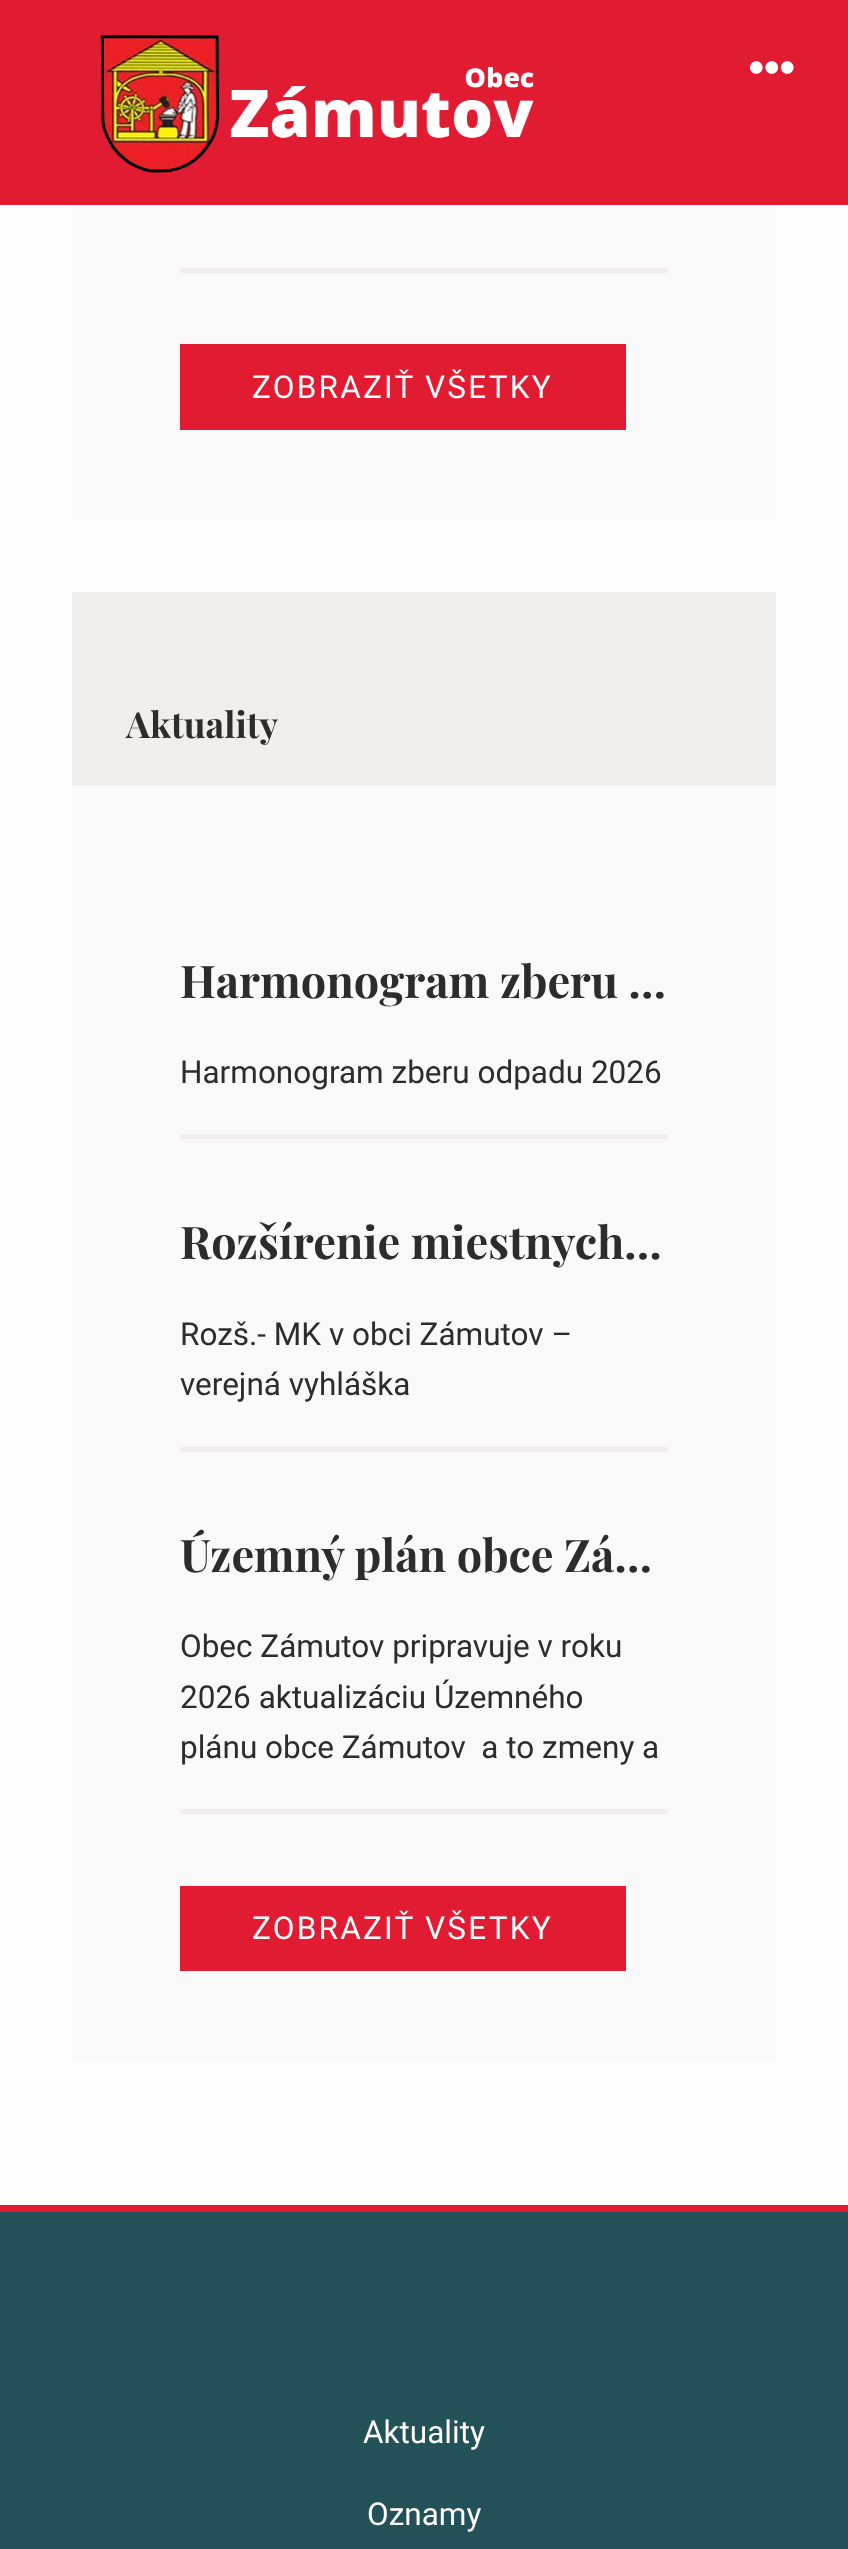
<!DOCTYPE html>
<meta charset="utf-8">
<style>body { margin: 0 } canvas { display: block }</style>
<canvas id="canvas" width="848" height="2549"></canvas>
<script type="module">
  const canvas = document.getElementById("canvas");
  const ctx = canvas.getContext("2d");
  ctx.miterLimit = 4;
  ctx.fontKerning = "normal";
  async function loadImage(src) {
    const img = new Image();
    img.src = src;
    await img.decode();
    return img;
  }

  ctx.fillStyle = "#fdfdfd";
  ctx.fillRect(0, 0, 848, 2549);
  ctx.fillStyle = "#e11c32";
  ctx.fillRect(0, 0, 848, 205);
  ctx.drawImage(await loadImage("img1.png"), 100, 35, 434, 138);
  ctx.drawImage(await loadImage("img2.png"), 749, 61, 45, 13);
  ctx.fillStyle = "#f9f9f9";
  ctx.fillRect(72, 205, 704, 315);
  ctx.fillStyle = "#f1eded";
  ctx.fillRect(180, 268, 488, 5);
  ctx.fillStyle = "#e11c32";
  ctx.fillRect(180, 344, 446, 86);
  ctx.letterSpacing = "2.25px";
  ctx.font = "31.5px Roboto";
  ctx.fillStyle = "#fdfdfd";
  ctx.fillText("ZOBRAZIŤ VŠETKY", 252, 398);
  ctx.fillStyle = "#f9f9f9";
  ctx.fillRect(72, 785, 704, 1276);
  ctx.fillStyle = "#f1eded";
  ctx.fillRect(72, 592, 704, 193);
  ctx.letterSpacing = "0px";
  ctx.font = "bold 36px Playfair Display";
  ctx.fillStyle = "#2c2c2c";
  ctx.fillText("Aktuality", 126, 738);
  ctx.fillStyle = "#f1eded";
  ctx.fillRect(180, 1134, 488, 5);
  ctx.font = "bold 45px Playfair Display";
  ctx.fillStyle = "#2c2c2c";
  ctx.fillText("Harmonogram zberu …", 180, 998);
  ctx.font = "31.5px Roboto";
  ctx.fillText("Harmonogram zberu odpadu 2026", 180, 1083);
  ctx.fillStyle = "#f1eded";
  ctx.fillRect(180, 1447, 488, 5);
  ctx.font = "bold 45px Playfair Display";
  ctx.fillStyle = "#2c2c2c";
  ctx.fillText("Rozšírenie miestnych…", 180, 1259);
  ctx.font = "31.5px Roboto";
  ctx.fillText("Rozš.- MK v obci Zámutov –", 180, 1345);
  ctx.fillText("verejná vyhláška", 180, 1395);
  ctx.fillStyle = "#f1eded";
  ctx.fillRect(180, 1809, 488, 5);
  ctx.font = "bold 45px Playfair Display";
  ctx.fillStyle = "#2c2c2c";
  ctx.fillText("Územný plán obce Zá…", 180, 1572);
  ctx.font = "31.5px Roboto";
  ctx.fillText("Obec Zámutov pripravuje v roku", 180, 1657);
  ctx.fillText("2026 aktualizáciu Územného", 180, 1708);
  ctx.fillText("plánu obce Zámutov  a to zmeny a", 180, 1758);
  ctx.fillStyle = "#e11c32";
  ctx.fillRect(180, 1886, 446, 85);
  ctx.letterSpacing = "2.25px";
  ctx.fillStyle = "#fdfdfd";
  ctx.fillText("ZOBRAZIŤ VŠETKY", 252, 1939);
  ctx.fillStyle = "#235158";
  ctx.fillRect(0, 2212, 848, 337);
  ctx.fillStyle = "#e11c32";
  ctx.fillRect(0, 2205, 848, 7);
  ctx.letterSpacing = "0px";
  ctx.fillStyle = "#fdfdfd";
  ctx.fillText("Aktuality", 363, 2443);
  ctx.fillText("Oznamy", 367, 2525);
</script>
